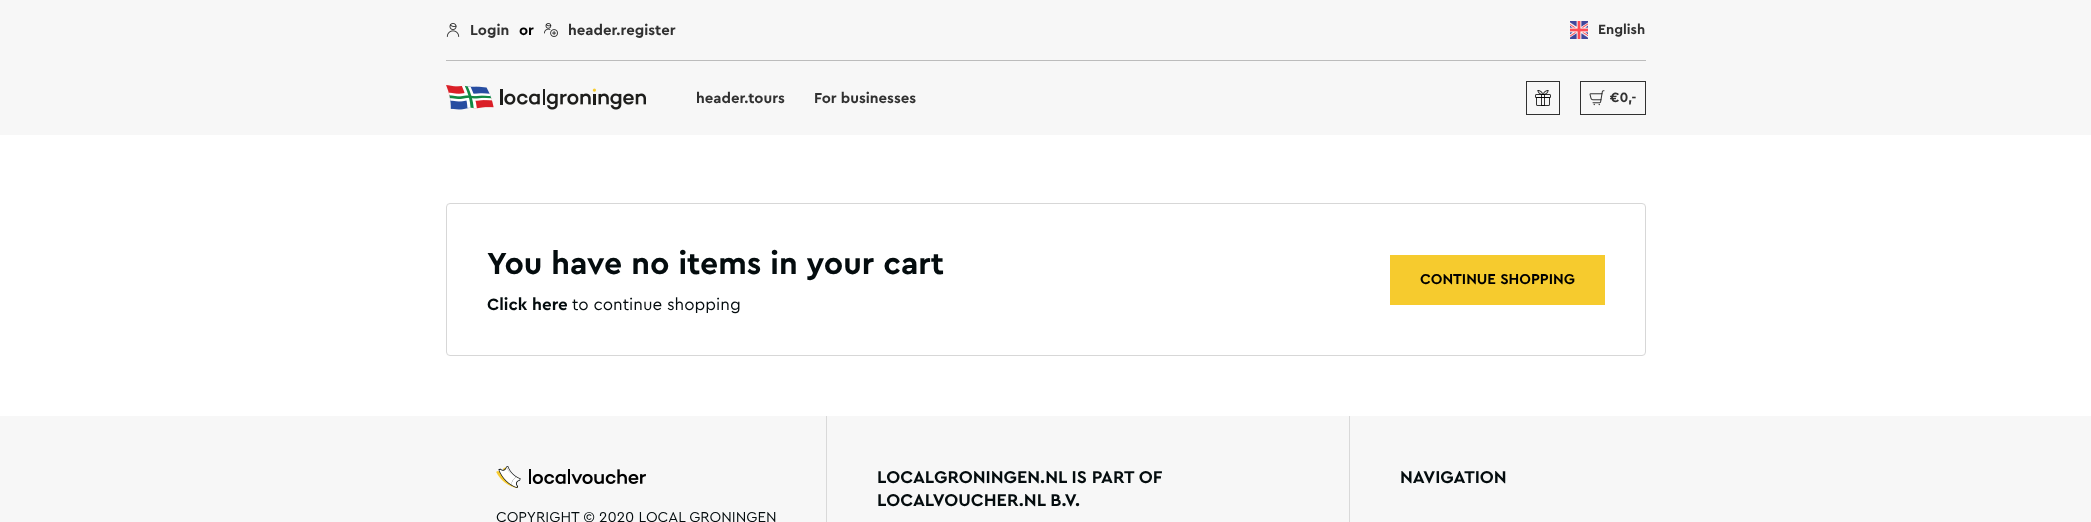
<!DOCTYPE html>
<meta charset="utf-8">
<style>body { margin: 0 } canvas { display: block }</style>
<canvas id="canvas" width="2091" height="522"></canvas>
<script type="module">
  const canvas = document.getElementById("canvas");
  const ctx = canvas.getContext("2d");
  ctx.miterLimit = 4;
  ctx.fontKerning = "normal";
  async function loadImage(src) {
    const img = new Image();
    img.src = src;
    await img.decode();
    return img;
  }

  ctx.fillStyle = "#ffffff";
  ctx.fillRect(0, 0, 2091, 522);
  ctx.fillStyle = "#f7f7f7";
  ctx.fillRect(0, 0, 2091, 135);
  ctx.fillStyle = "#bcbcbc";
  ctx.fillRect(446, 60, 1200, 1);
  ctx.drawImage(await loadImage("img1.png"), 446, 23, 14, 14);
  ctx.font = "bold 15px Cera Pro";
  ctx.fillStyle = "#313131";
  ctx.fillText("Login", 470, 35);
  ctx.fillStyle = "#000000";
  ctx.fillText("or", 519, 35);
  ctx.drawImage(await loadImage("img2.png"), 544, 23, 14, 14);
  ctx.fillStyle = "#313131";
  ctx.fillText("header.register", 568, 35);
  ctx.drawImage(await loadImage("img3.png"), 1570, 21, 18, 18);
  ctx.font = "bold 14px Cera Pro";
  ctx.fillText("English", 1598, 34);
  ctx.drawImage(await loadImage("img4.png"), 446, 85, 200, 25);
  ctx.font = "bold 15px Cera Pro";
  ctx.fillText("header.tours", 696, 103);
  ctx.fillText("For businesses", 814, 103);
  ctx.strokeStyle = "#313131";
  ctx.strokeRect(1526.5, 81.5, 33, 33);
  ctx.drawImage(await loadImage("img5.png"), 1535, 90, 16, 16);
  ctx.strokeRect(1580.5, 81.5, 65, 33);
  ctx.drawImage(await loadImage("img6.png"), 1589, 90, 16, 16);
  ctx.font = "bold 14px Cera Pro";
  ctx.fillText("€0,-", 1610, 102);
  ctx.beginPath();
  ctx.roundRect(446.5, 203.5, 1199, 152, 3.5);
  ctx.strokeStyle = "#d7d7d7";
  ctx.stroke();
  ctx.font = "bold 32px Cera Pro";
  ctx.fillStyle = "#040c0e";
  ctx.fillText("You have no items in your cart", 487, 274);
  ctx.font = "bold 17px Cera Pro";
  ctx.fillText("Click here", 487, 310);
  ctx.font = "17px Cera Pro";
  ctx.fillText("to continue shopping", 572, 310);
  ctx.fillStyle = "#f6cb2e";
  ctx.fillRect(1390, 255, 215, 50);
  ctx.font = "bold 15px Cera Pro";
  ctx.fillStyle = "#000000";
  ctx.fillText("CONTINUE SHOPPING", 1420, 284);
  ctx.fillStyle = "#f7f7f7";
  ctx.fillRect(0, 416, 2091, 106);
  ctx.fillStyle = "#d9d9d9";
  ctx.fillRect(1349, 416, 1, 106);
  ctx.fillRect(826, 416, 1, 106);
  ctx.font = "bold 18px Cera Pro";
  ctx.fillStyle = "#040c0e";
  ctx.fillText("LOCALGRONINGEN.NL IS PART OF", 877, 483);
  ctx.fillText("LOCALVOUCHER.NL B.V.", 877, 506);
  ctx.fillText("NAVIGATION", 1400, 483);
  ctx.drawImage(await loadImage("img7.png"), 496, 466, 150, 22);
  ctx.font = "15px Cera Pro";
  ctx.fillText("COPYRIGHT © 2020 LOCAL GRONINGEN", 496, 522);
</script>
